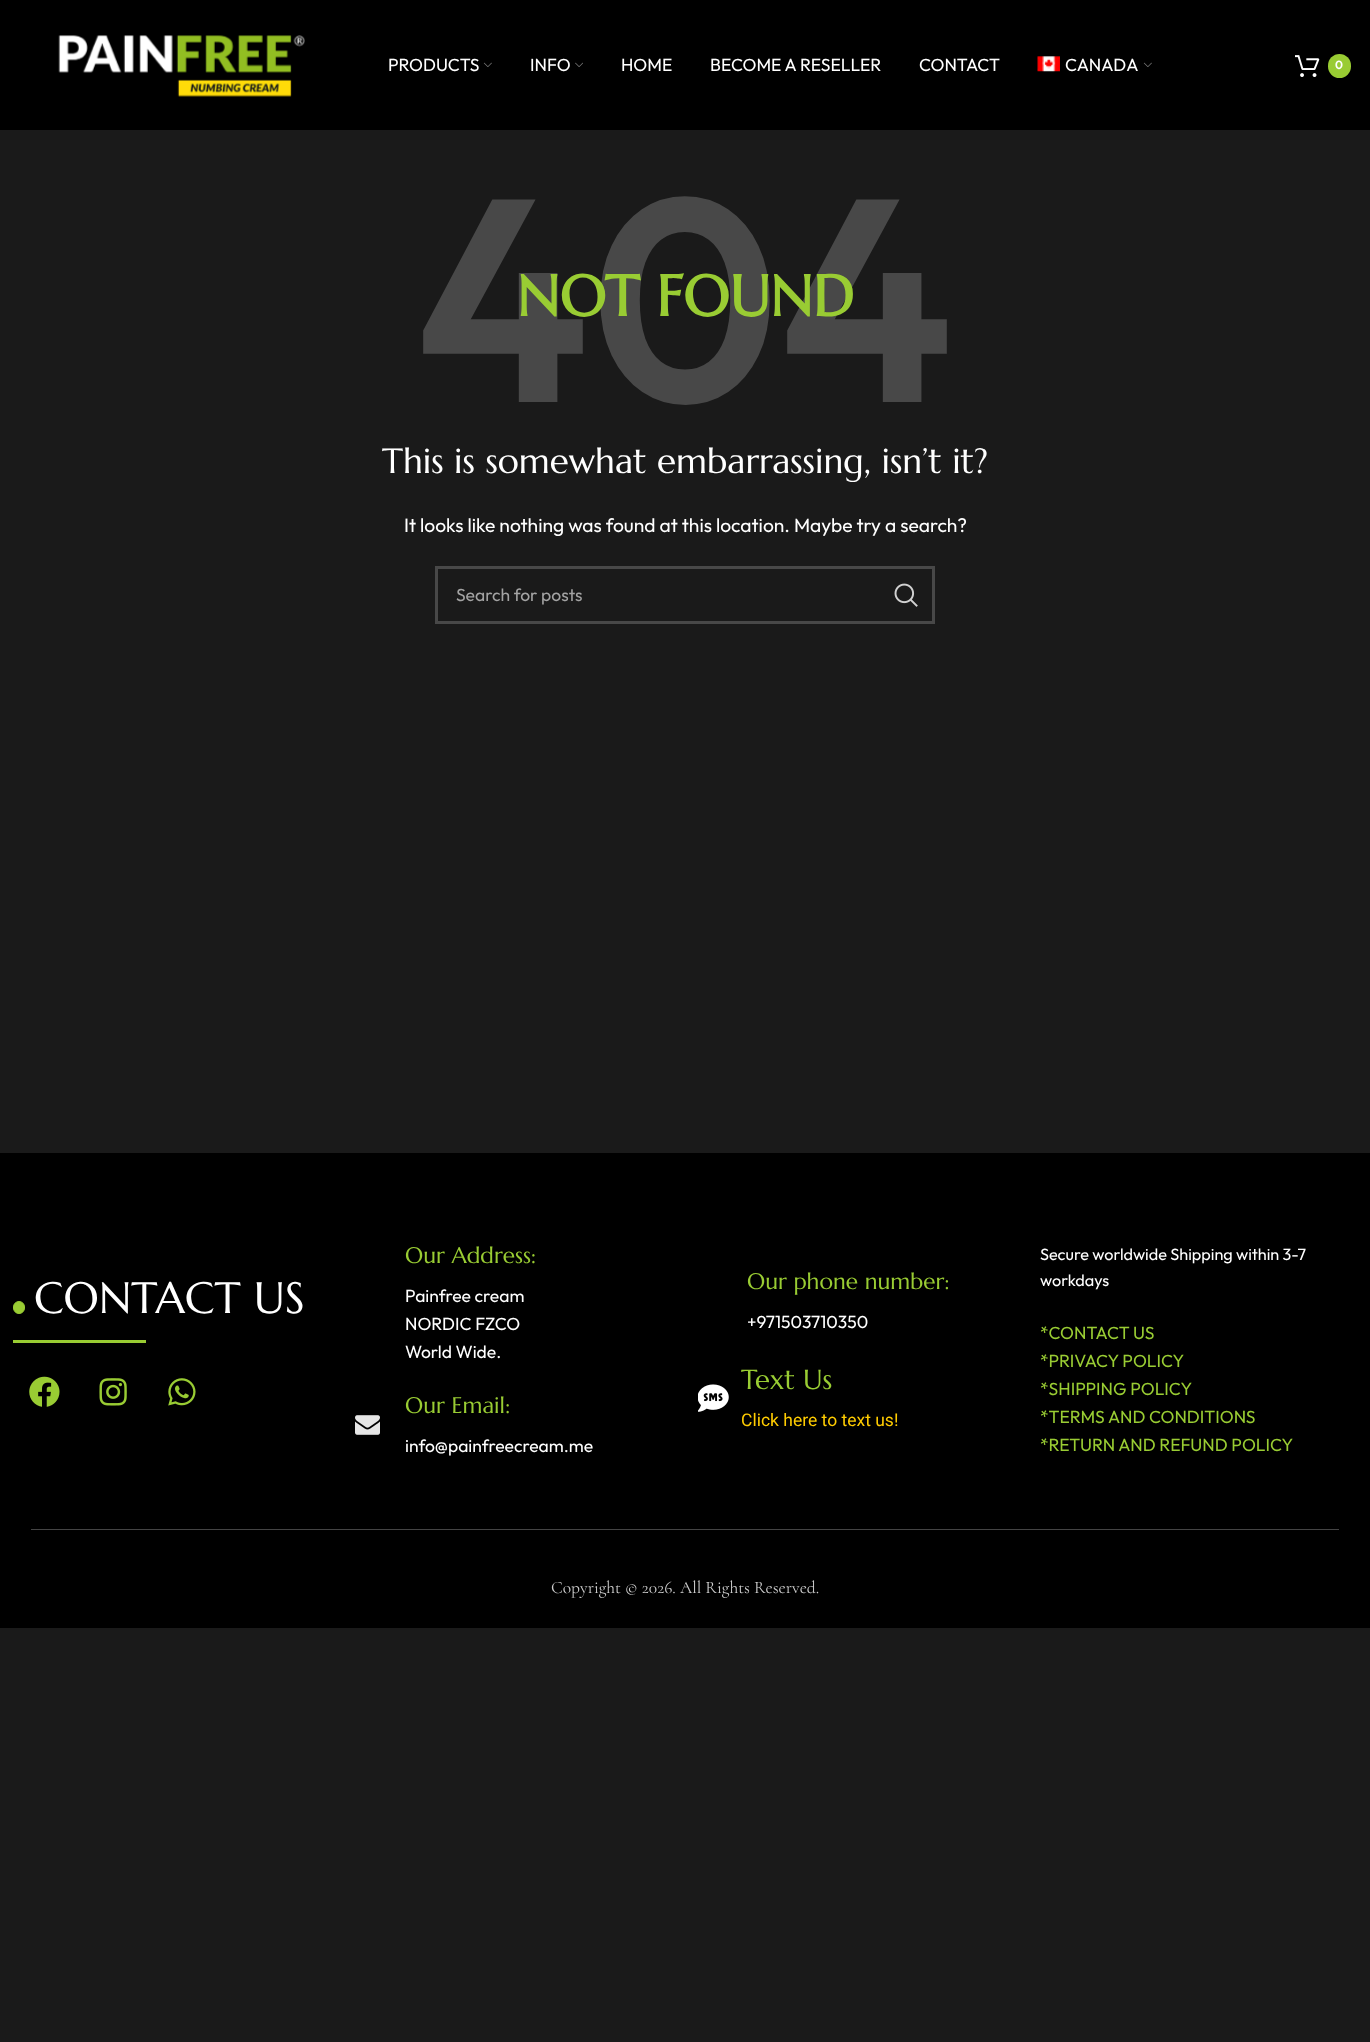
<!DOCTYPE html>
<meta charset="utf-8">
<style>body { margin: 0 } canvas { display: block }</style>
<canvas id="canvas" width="1370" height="2042"></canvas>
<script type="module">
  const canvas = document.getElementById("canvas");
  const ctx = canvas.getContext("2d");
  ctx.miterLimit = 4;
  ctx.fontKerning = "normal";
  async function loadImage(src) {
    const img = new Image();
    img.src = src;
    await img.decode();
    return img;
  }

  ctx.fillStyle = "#1a1a1a";
  ctx.fillRect(0, 0, 1370, 2042);
  ctx.fillStyle = "#000000";
  ctx.fillRect(0, 0, 1370, 130);
  ctx.drawImage(await loadImage("img1.png"), 58, 35, 247, 62);
  ctx.font = "17.5px Outfit";
  ctx.fillStyle = "#ffffff";
  ctx.fillText("PRODUCTS", 388, 71);
  ctx.drawImage(await loadImage("img2.png"), 483, 62, 9, 5);
  ctx.fillText("INFO", 530, 71);
  ctx.drawImage(await loadImage("img3.png"), 575, 62, 8, 5);
  ctx.fillText("HOME", 621, 71);
  ctx.fillText("BECOME A RESELLER", 710, 71);
  ctx.fillText("CONTACT", 919, 71);
  ctx.drawImage(await loadImage("img4.png"), 1037, 56, 23, 16);
  ctx.fillText("CANADA", 1065, 71);
  ctx.drawImage(await loadImage("img2.png"), 1143, 62, 9, 5);
  ctx.drawImage(await loadImage("img5.png"), 1295, 55, 25, 22);
  ctx.fillStyle = "#99cc33";
  ctx.beginPath();
  ctx.roundRect(1328, 54, 23, 24, 11.5);
  ctx.fill();
  ctx.font = "600 12px Outfit";
  ctx.fillStyle = "#ffffff";
  ctx.fillText("0", 1335, 69);
  ctx.font = "600 288px Outfit";
  ctx.fillStyle = "#484848";
  ctx.fillText("404", 416, 402);
  ctx.font = "bold 57.5px Marcellus";
  ctx.fillStyle = "#99cc33";
  ctx.fillText("NOT FOUND", 517, 316);
  ctx.font = "35px Marcellus";
  ctx.fillStyle = "#ffffff";
  ctx.fillText("This is somewhat embarrassing, isn’t it?", 382, 473);
  ctx.font = "19.25px Outfit";
  ctx.fillText("It looks like nothing was found at this location. Maybe try a search?", 404, 532);
  ctx.strokeStyle = "#484848";
  ctx.lineWidth = 3;
  ctx.strokeRect(436.5, 567.5, 497, 55);
  ctx.font = "17.5px Outfit";
  ctx.fillStyle = "#a3a3a3";
  ctx.fillText("Search for posts", 456, 601);
  ctx.drawImage(await loadImage("img6.png"), 894, 583, 24, 24);
  ctx.fillStyle = "#000000";
  ctx.fillRect(0, 1153, 1370, 475);
  ctx.fillStyle = "#99cc33";
  ctx.beginPath();
  ctx.roundRect(13.5, 1301.5, 11, 12, 5.5);
  ctx.fill();
  ctx.strokeStyle = "#99cc33";
  ctx.lineWidth = 1;
  ctx.stroke();
  ctx.font = "43.75px Marcellus";
  ctx.fillStyle = "#ffffff";
  ctx.fillText("CONTACT US", 34, 1313);
  ctx.fillStyle = "#99cc33";
  ctx.fillRect(13, 1340, 133, 3);
  ctx.drawImage(await loadImage("img7.png"), 29, 1376, 31, 31);
  ctx.drawImage(await loadImage("img8.png"), 99, 1378, 28, 28);
  ctx.drawImage(await loadImage("img9.png"), 168, 1378, 28, 28);
  ctx.font = "22.5px Marcellus";
  ctx.fillText("Our Address:", 405, 1263);
  ctx.font = "17.5px Outfit";
  ctx.fillStyle = "#ffffff";
  ctx.fillText("Painfree cream", 405, 1302);
  ctx.fillText("NORDIC FZCO", 405, 1330);
  ctx.fillText("World Wide.", 405, 1358);
  ctx.drawImage(await loadImage("img10.png"), 355, 1415, 25, 20);
  ctx.font = "22.5px Marcellus";
  ctx.fillStyle = "#99cc33";
  ctx.fillText("Our Email:", 405, 1413);
  ctx.font = "17.5px Outfit";
  ctx.fillStyle = "#ffffff";
  ctx.fillText("info@painfreecream.me", 405, 1452);
  ctx.font = "22.5px Marcellus";
  ctx.fillStyle = "#99cc33";
  ctx.fillText("Our phone number:", 747, 1289);
  ctx.font = "17.5px Outfit";
  ctx.fillStyle = "#ffffff";
  ctx.fillText("+971503710350", 747, 1328);
  ctx.drawImage(await loadImage("img11.png"), 698, 1384, 31, 28);
  ctx.font = "27.5px Marcellus";
  ctx.fillStyle = "#99cc33";
  ctx.fillText("Text Us", 741, 1389);
  ctx.font = "17.5px Roboto";
  ctx.fillStyle = "#ffcc00";
  ctx.fillText("Click here to text us!", 741, 1426);
  ctx.font = "16.25px Outfit";
  ctx.fillStyle = "#ffffff";
  ctx.fillText("Secure worldwide Shipping within 3-7", 1040, 1260);
  ctx.fillText("workdays", 1040, 1286);
  ctx.font = "17.5px Outfit";
  ctx.fillStyle = "#99cc33";
  ctx.fillText("*CONTACT US", 1040, 1339);
  ctx.fillText("*PRIVACY POLICY", 1040, 1367);
  ctx.fillText("*SHIPPING POLICY", 1040, 1395);
  ctx.fillText("*TERMS AND CONDITIONS", 1040, 1423);
  ctx.fillText("*RETURN AND REFUND POLICY", 1040, 1451);
  ctx.fillStyle = "#444444";
  ctx.fillRect(31, 1529, 1308, 1);
  ctx.font = "17.5px Cormorant";
  ctx.fillStyle = "#cccccc";
  ctx.fillText("Copyright © 2026. All Rights Reserved.", 551, 1593);
</script>
